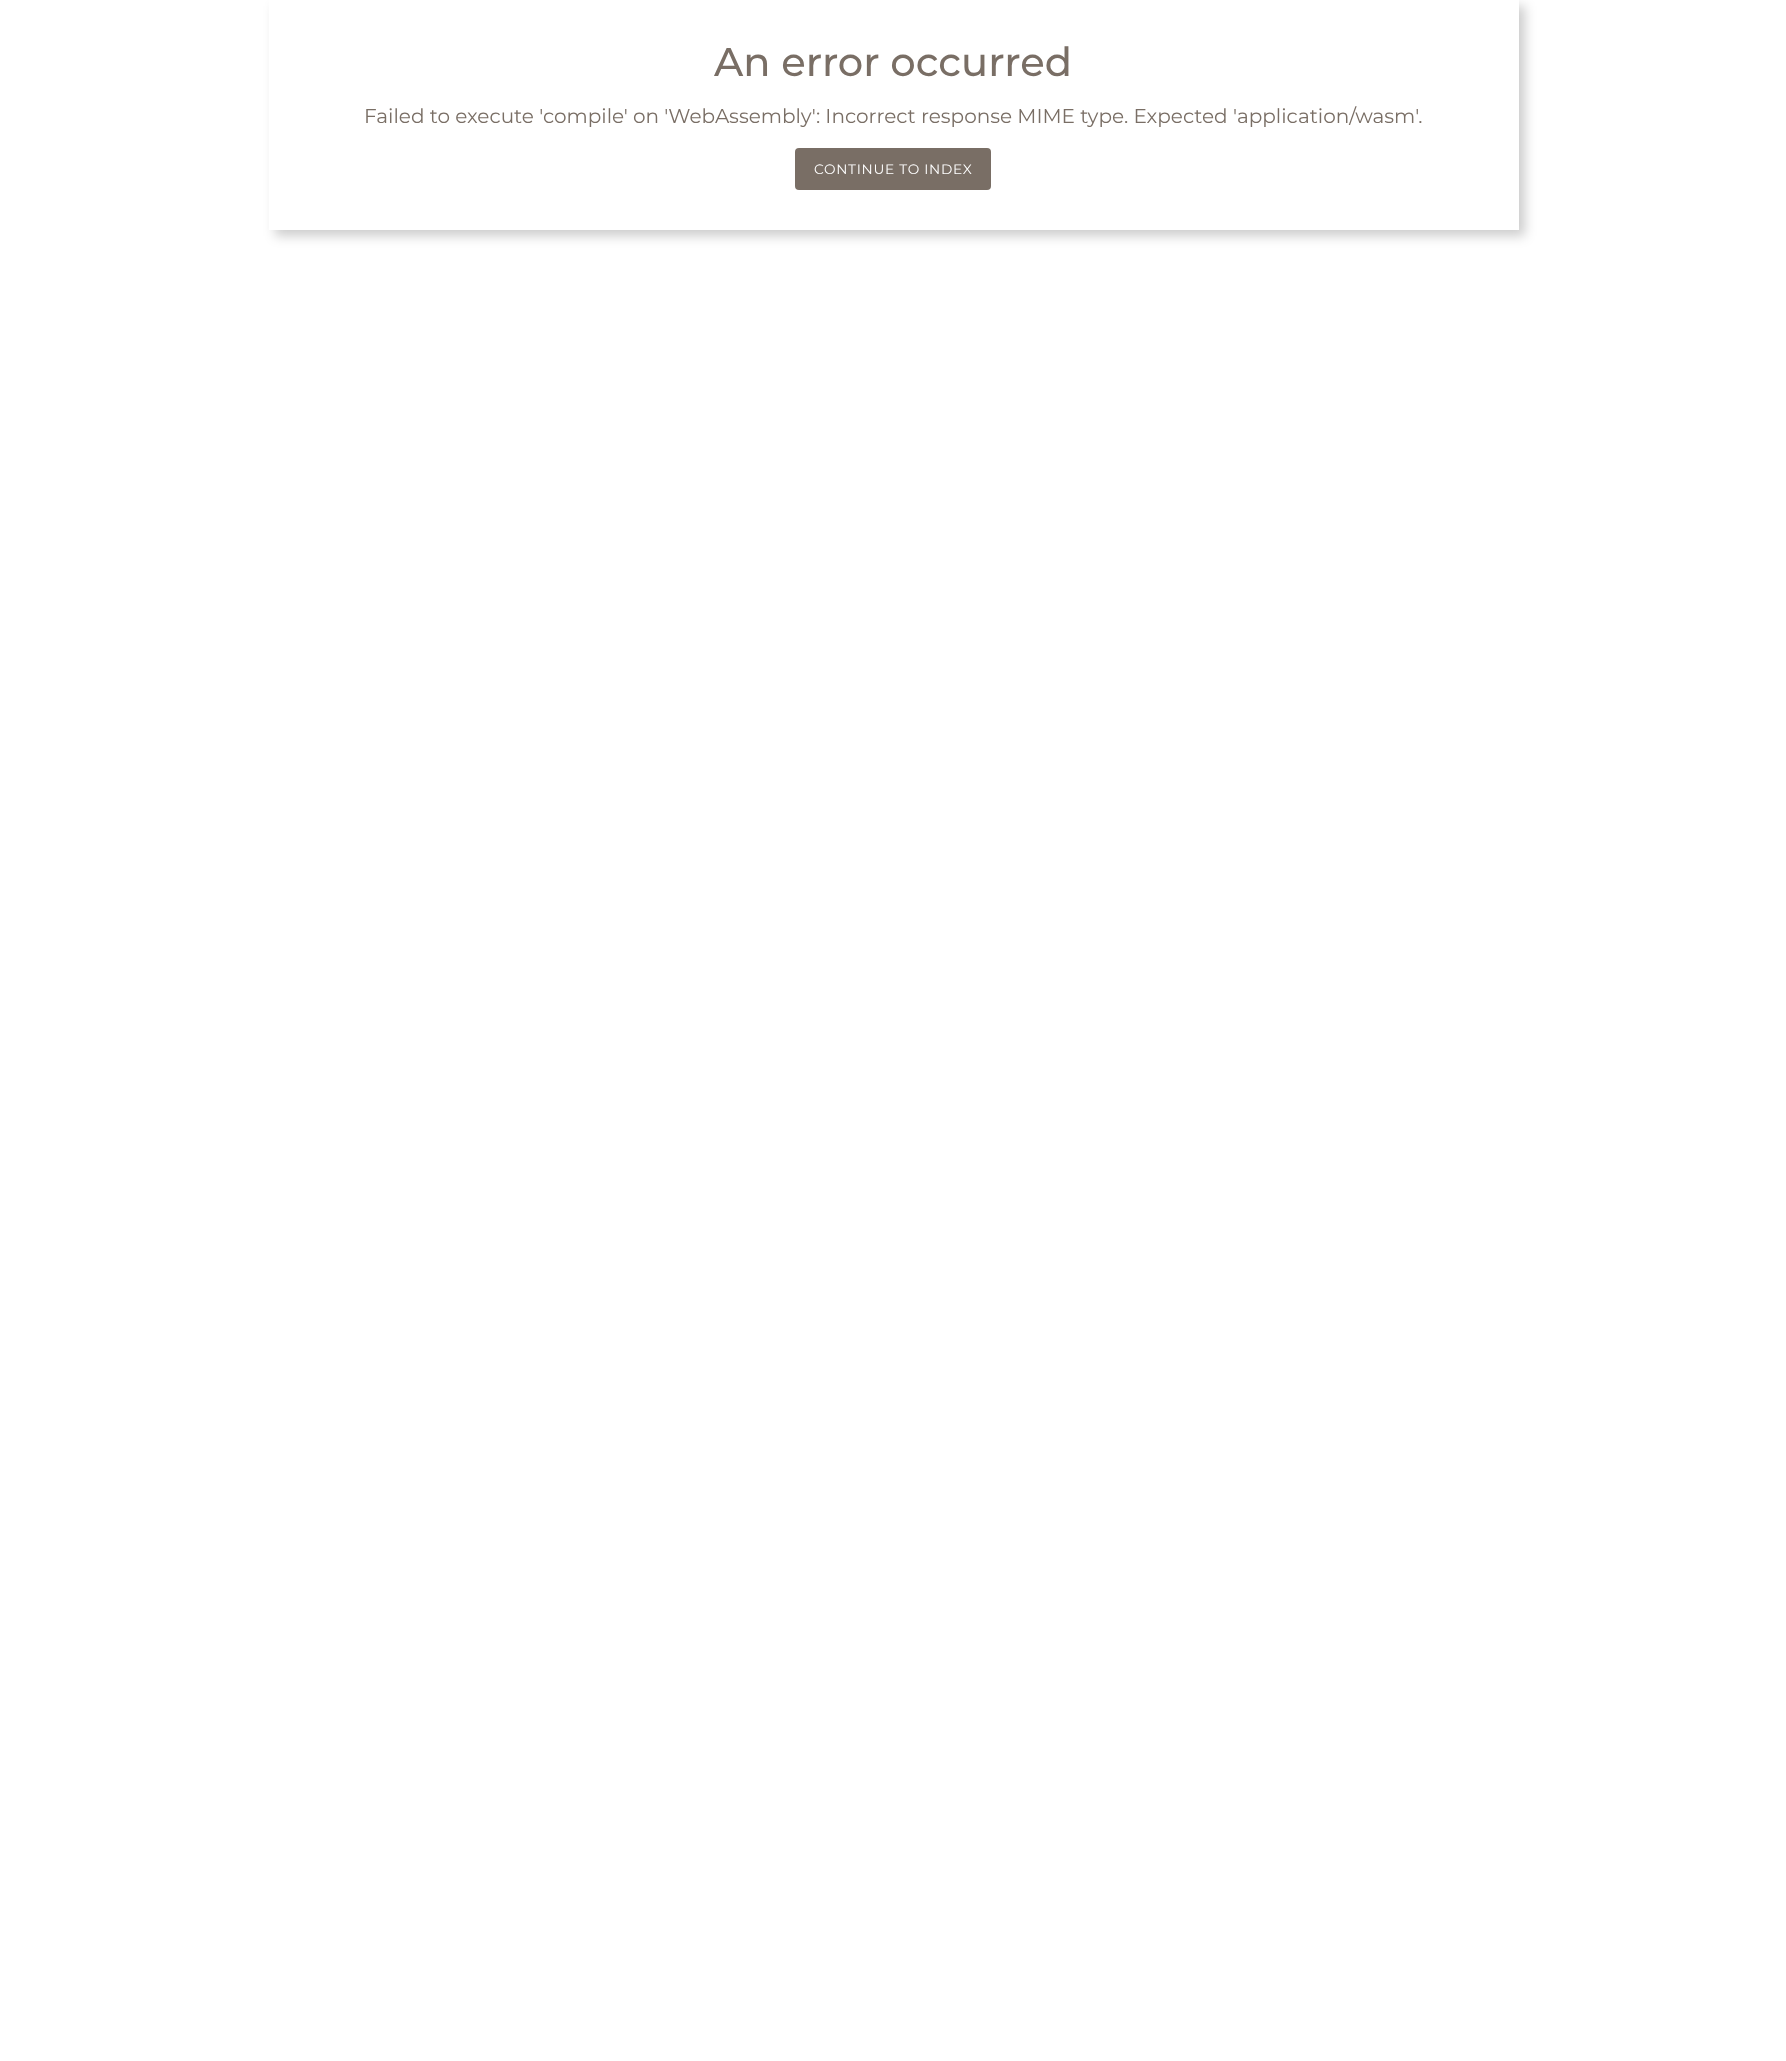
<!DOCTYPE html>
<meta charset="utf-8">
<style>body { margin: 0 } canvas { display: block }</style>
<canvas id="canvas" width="1786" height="2061"></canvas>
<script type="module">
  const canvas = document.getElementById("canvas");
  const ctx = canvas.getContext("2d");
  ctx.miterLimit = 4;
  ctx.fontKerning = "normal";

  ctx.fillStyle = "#ffffff";
  ctx.fillRect(0, 0, 1786, 2061);
  ctx.fillStyle = "rgba(0, 0, 0, 0.2)";
  ctx.filter = "blur(6px)";
  ctx.beginPath();
  ctx.rect(275, 6, 1250, 230);
  ctx.fill();
  ctx.filter = "none";
  ctx.fillStyle = "#ffffff";
  ctx.fillRect(269, 0, 1250, 230);
  ctx.font = "500 40px Montserrat";
  ctx.fillStyle = "#796e65";
  ctx.fillText("An error occurred", 714, 76);
  ctx.font = "20px Montserrat";
  ctx.fillText("Failed to execute 'compile' on 'WebAssembly': Incorrect response MIME type. Expected 'application/wasm'.", 364, 123);
  ctx.beginPath();
  ctx.roundRect(795, 148, 196, 42, 4);
  ctx.fill();
  ctx.letterSpacing = "0.7px";
  ctx.font = "13.75px Montserrat";
  ctx.fillStyle = "#ffffff";
  ctx.fillText("CONTINUE TO INDEX", 814, 174);
</script>
